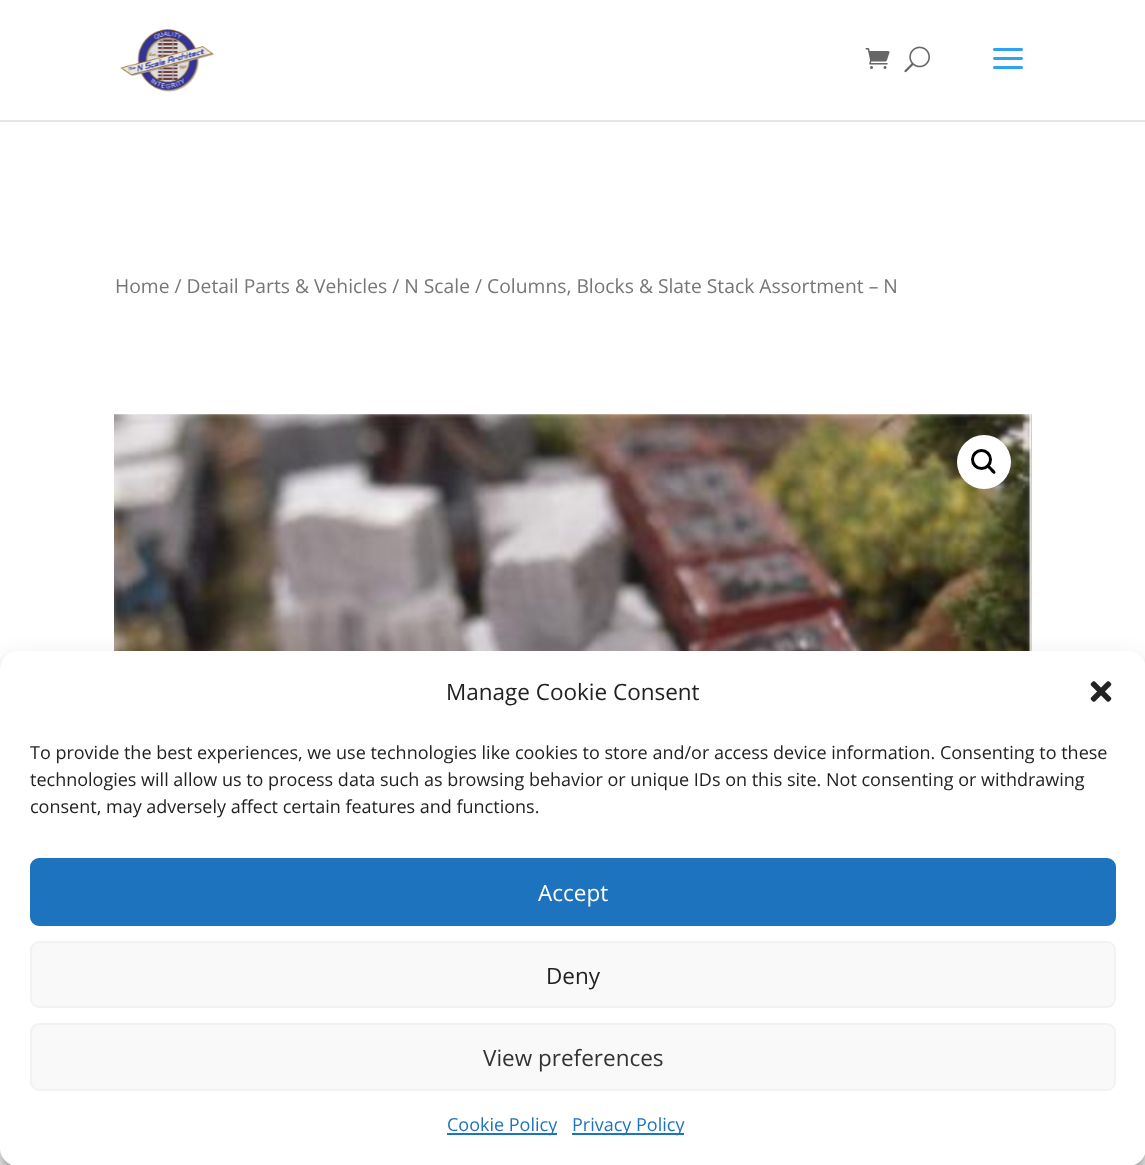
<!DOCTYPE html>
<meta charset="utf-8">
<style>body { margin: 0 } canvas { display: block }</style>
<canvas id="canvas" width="1145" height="1165"></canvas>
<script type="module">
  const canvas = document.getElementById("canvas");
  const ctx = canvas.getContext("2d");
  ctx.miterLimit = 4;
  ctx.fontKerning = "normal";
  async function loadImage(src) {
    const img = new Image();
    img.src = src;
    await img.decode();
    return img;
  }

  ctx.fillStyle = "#ffffff";
  ctx.fillRect(0, 0, 1145, 1165);
  ctx.fillStyle = "#e6e6e6";
  ctx.fillRect(0, 120, 1145, 2);
  ctx.drawImage(await loadImage("img1.png"), 120, 29, 95, 63);
  ctx.drawImage(await loadImage("img2.png"), 865, 48, 25, 21);
  ctx.drawImage(await loadImage("img3.png"), 904, 46, 26, 27);
  ctx.drawImage(await loadImage("img4.png"), 993, 48, 30, 21);
  ctx.font = "19.3px Open Sans";
  ctx.fillStyle = "#767676";
  ctx.fillText("Home / Detail Parts & Vehicles / N Scale / Columns, Blocks & Slate Stack Assortment – N", 115, 293);
  ctx.drawImage(await loadImage("img5.png"), 114, 414, 918, 237);
  ctx.drawImage(await loadImage("img6.png"), 1031, 414, 1, 237);
  ctx.fillStyle = "#ffffff";
  ctx.beginPath();
  ctx.arc(984, 462, 27, 0, Math.PI * 2);
  ctx.fill();
  ctx.beginPath();
  ctx.arc(981.5, 459.5, 9, 0, Math.PI * 2);
  ctx.strokeStyle = "#000000";
  ctx.lineWidth = 3;
  ctx.stroke();
  ctx.fillStyle = "#000000";
  ctx.beginPath();
  ctx.moveTo(986.5, 465);
  ctx.bezierCurveTo(988.5, 463, 991, 467, 992, 468);
  ctx.bezierCurveTo(993, 469, 997, 471.5, 995, 473.5);
  ctx.bezierCurveTo(993.5, 475, 990.5, 471, 990, 470);
  ctx.bezierCurveTo(989, 469, 985, 466.5, 986.5, 465);
  ctx.closePath();
  ctx.fill();
  ctx.fillStyle = "rgba(0, 0, 0, 0.23)";
  ctx.filter = "blur(4.5px)";
  ctx.beginPath();
  ctx.roundRect(0, 660, 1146, 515, 18);
  ctx.fill();
  ctx.filter = "none";
  ctx.fillStyle = "rgba(0, 0, 0, 0.19)";
  ctx.filter = "blur(15px)";
  ctx.beginPath();
  ctx.roundRect(0, 666, 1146, 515, 18);
  ctx.fill();
  ctx.filter = "none";
  ctx.fillStyle = "#ffffff";
  ctx.beginPath();
  ctx.roundRect(0, 651, 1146, 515, 18);
  ctx.fill();
  ctx.font = "22.5px Open Sans";
  ctx.fillStyle = "#222222";
  ctx.fillText("Manage Cookie Consent", 446, 700);
  ctx.drawImage(await loadImage("img7.png"), 1090, 681, 22, 21);
  ctx.font = "18px Open Sans";
  ctx.fillText("To provide the best experiences, we use technologies like cookies to store and/or access device information. Consenting to these", 30, 759);
  ctx.fillText("technologies will allow us to process data such as browsing behavior or unique IDs on this site. Not consenting or withdrawing", 30, 786);
  ctx.fillText("consent, may adversely affect certain features and functions.", 30, 813);
  ctx.fillStyle = "#1e73be";
  ctx.beginPath();
  ctx.roundRect(31, 859, 1084, 66, 8);
  ctx.fill();
  ctx.strokeStyle = "#1e73be";
  ctx.lineWidth = 2;
  ctx.stroke();
  ctx.font = "22.5px Open Sans";
  ctx.fillStyle = "#ffffff";
  ctx.fillText("Accept", 538, 901);
  ctx.fillStyle = "#f9f9f9";
  ctx.beginPath();
  ctx.roundRect(31, 942, 1084, 65, 8);
  ctx.fill();
  ctx.strokeStyle = "#f2f2f2";
  ctx.stroke();
  ctx.fillStyle = "#222222";
  ctx.fillText("Deny", 546, 984);
  ctx.fillStyle = "#f9f9f9";
  ctx.beginPath();
  ctx.roundRect(31, 1024, 1084, 66, 8);
  ctx.fill();
  ctx.stroke();
  ctx.fillStyle = "#333333";
  ctx.fillText("View preferences", 483, 1066);
  ctx.fillStyle = "#1e73be";
  ctx.fillRect(447, 1133, 110, 2);
  ctx.font = "18px Open Sans";
  ctx.fillText("Cookie Policy", 447, 1131);
  ctx.fillRect(572, 1133, 112, 2);
  ctx.fillText("Privacy Policy", 572, 1131);
</script>
